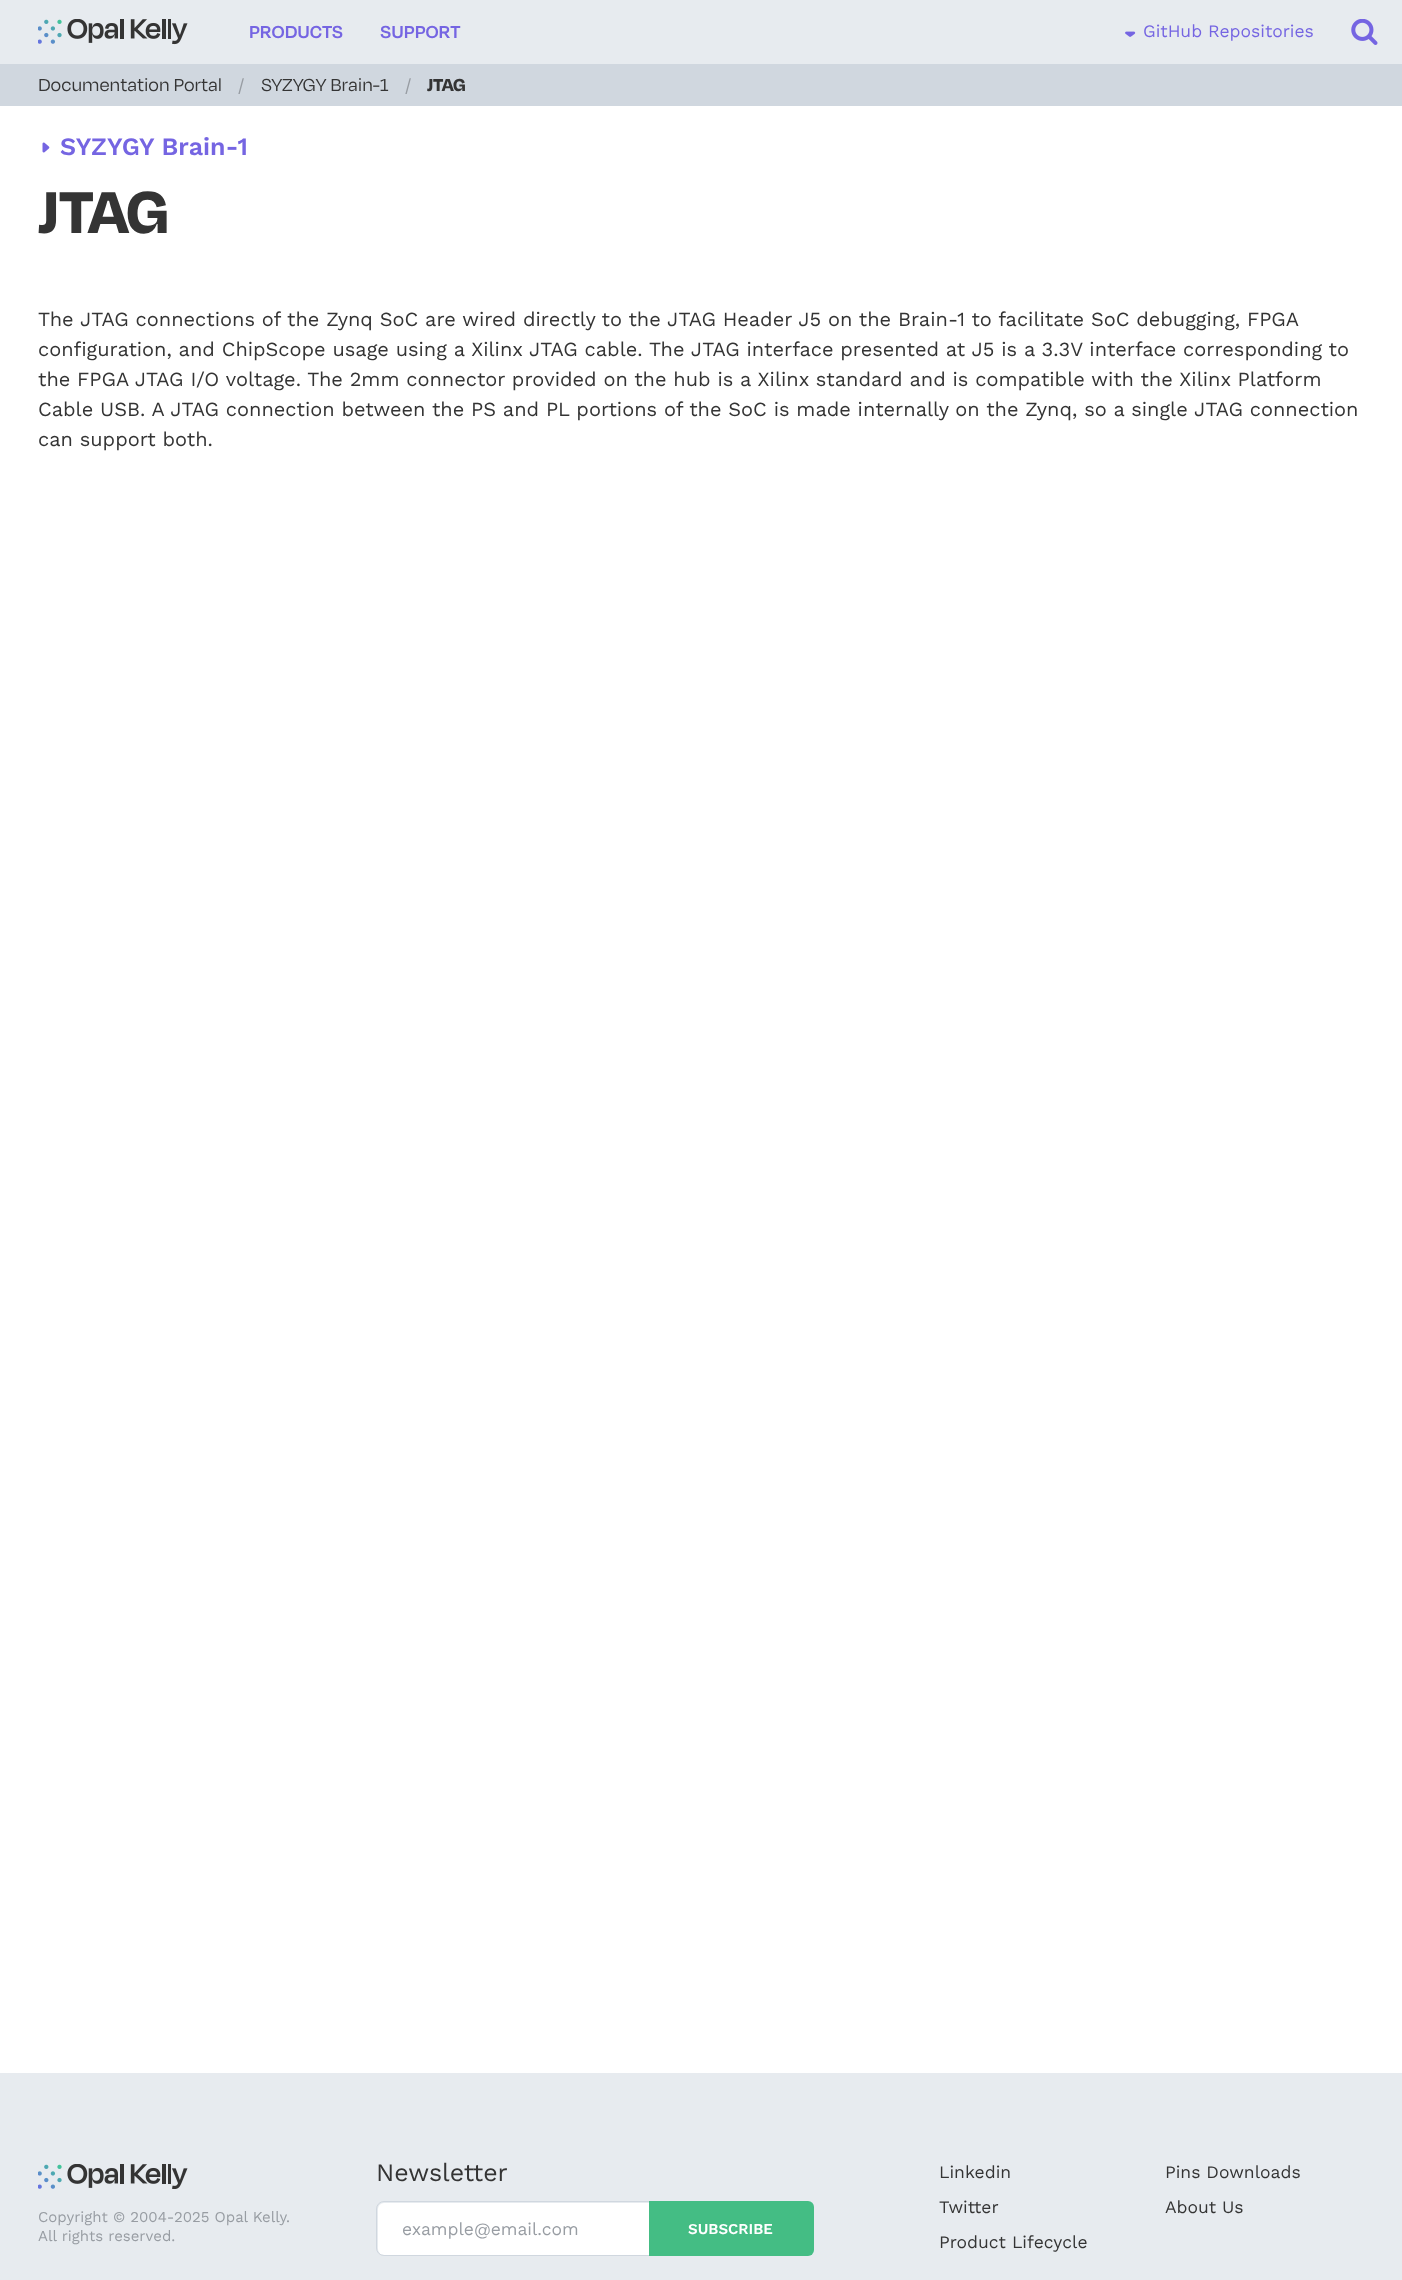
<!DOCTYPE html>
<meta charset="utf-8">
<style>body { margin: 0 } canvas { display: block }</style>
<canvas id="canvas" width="1402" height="2280"></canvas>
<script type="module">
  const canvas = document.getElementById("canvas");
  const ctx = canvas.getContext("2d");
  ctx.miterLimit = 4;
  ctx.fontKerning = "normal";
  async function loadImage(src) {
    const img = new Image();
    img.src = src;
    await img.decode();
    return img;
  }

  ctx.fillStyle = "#ffffff";
  ctx.fillRect(0, 0, 1402, 2280);
  ctx.fillStyle = "#e7ebef";
  ctx.fillRect(0, 0, 1402, 64);
  ctx.drawImage(await loadImage("img1.png"), 38, 19, 150, 26);
  ctx.font = "600 20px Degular";
  ctx.fillStyle = "#7565e2";
  ctx.fillText("PRODUCTS", 249, 38);
  ctx.fillText("SUPPORT", 380, 38);
  ctx.drawImage(await loadImage("img2.png"), 1125, 31, 11, 6);
  ctx.font = "17.5px Work Sans";
  ctx.fillText("GitHub Repositories", 1143, 37);
  ctx.drawImage(await loadImage("img3.png"), 1351, 19, 27, 26);
  ctx.fillStyle = "#d0d7df";
  ctx.fillRect(0, 64, 1402, 42);
  ctx.font = "20px Degular";
  ctx.fillStyle = "#343434";
  ctx.fillText("Documentation Portal", 38, 91);
  ctx.fillStyle = "#989da3";
  ctx.fillText("/", 238, 91);
  ctx.fillStyle = "#343434";
  ctx.fillText("SYZYGY Brain-1", 261, 91);
  ctx.fillStyle = "#989da3";
  ctx.fillText("/", 405, 91);
  ctx.font = "bold 20px Degular";
  ctx.fillStyle = "#343434";
  ctx.fillText("JTAG", 427, 91);
  ctx.drawImage(await loadImage("img4.png"), 42, 142, 8, 11);
  ctx.font = "600 25px Work Sans";
  ctx.fillStyle = "#7565e2";
  ctx.fillText("SYZYGY Brain-1", 60, 155);
  ctx.font = "bold 68px Degular";
  ctx.fillStyle = "#343434";
  ctx.fillText("JTAG", 38, 233);
  ctx.font = "20px Work Sans";
  ctx.fillText("The JTAG connections of the Zynq SoC are wired directly to the JTAG Header J5 on the Brain-1 to facilitate SoC debugging, FPGA", 38, 326);
  ctx.fillText("configuration, and ChipScope usage using a Xilinx JTAG cable. The JTAG interface presented at J5 is a 3.3V interface corresponding to", 38, 356);
  ctx.fillText("the FPGA JTAG I/O voltage. The 2mm connector provided on the hub is a Xilinx standard and is compatible with the Xilinx Platform", 38, 386);
  ctx.fillText("Cable USB. A JTAG connection between the PS and PL portions of the SoC is made internally on the Zynq, so a single JTAG connection", 38, 416);
  ctx.fillText("can support both.", 38, 446);
  ctx.fillStyle = "#e7ebef";
  ctx.fillRect(0, 2073, 1402, 207);
  ctx.drawImage(await loadImage("img5.png"), 38, 2164, 150, 25);
  ctx.font = "15px Work Sans";
  ctx.fillStyle = "#989da3";
  ctx.fillText("Copyright © 2004-2025 Opal Kelly.", 38, 2222);
  ctx.fillText("All rights reserved.", 38, 2241);
  ctx.font = "25px Work Sans";
  ctx.fillStyle = "#343434";
  ctx.fillText("Newsletter", 376, 2181);
  ctx.fillStyle = "#ffffff";
  ctx.beginPath();
  ctx.roundRect(378, 2203, 271, 52, [6, 0, 0, 6]);
  ctx.fill();
  ctx.beginPath();
  ctx.roundRect(376.5, 2201.5, 273, 54, [7.5, 0, 0, 7.5]);
  ctx.strokeStyle = "#d0d7df";
  ctx.stroke();
  ctx.font = "17.5px Work Sans";
  ctx.fillStyle = "#989da3";
  ctx.fillText("example@email.com", 402, 2235);
  ctx.fillStyle = "#44bd84";
  ctx.beginPath();
  ctx.roundRect(649, 2201, 165, 55, [0, 6, 6, 0]);
  ctx.fill();
  ctx.font = "600 15px Work Sans";
  ctx.fillStyle = "#ffffff";
  ctx.fillText("SUBSCRIBE", 688, 2234);
  ctx.font = "17.5px Work Sans";
  ctx.fillStyle = "#343434";
  ctx.fillText("Linkedin", 939, 2178);
  ctx.fillText("Twitter", 939, 2213);
  ctx.fillText("Product Lifecycle", 939, 2248);
  ctx.fillText("Pins Downloads", 1165, 2178);
  ctx.fillText("About Us", 1165, 2213);
</script>
